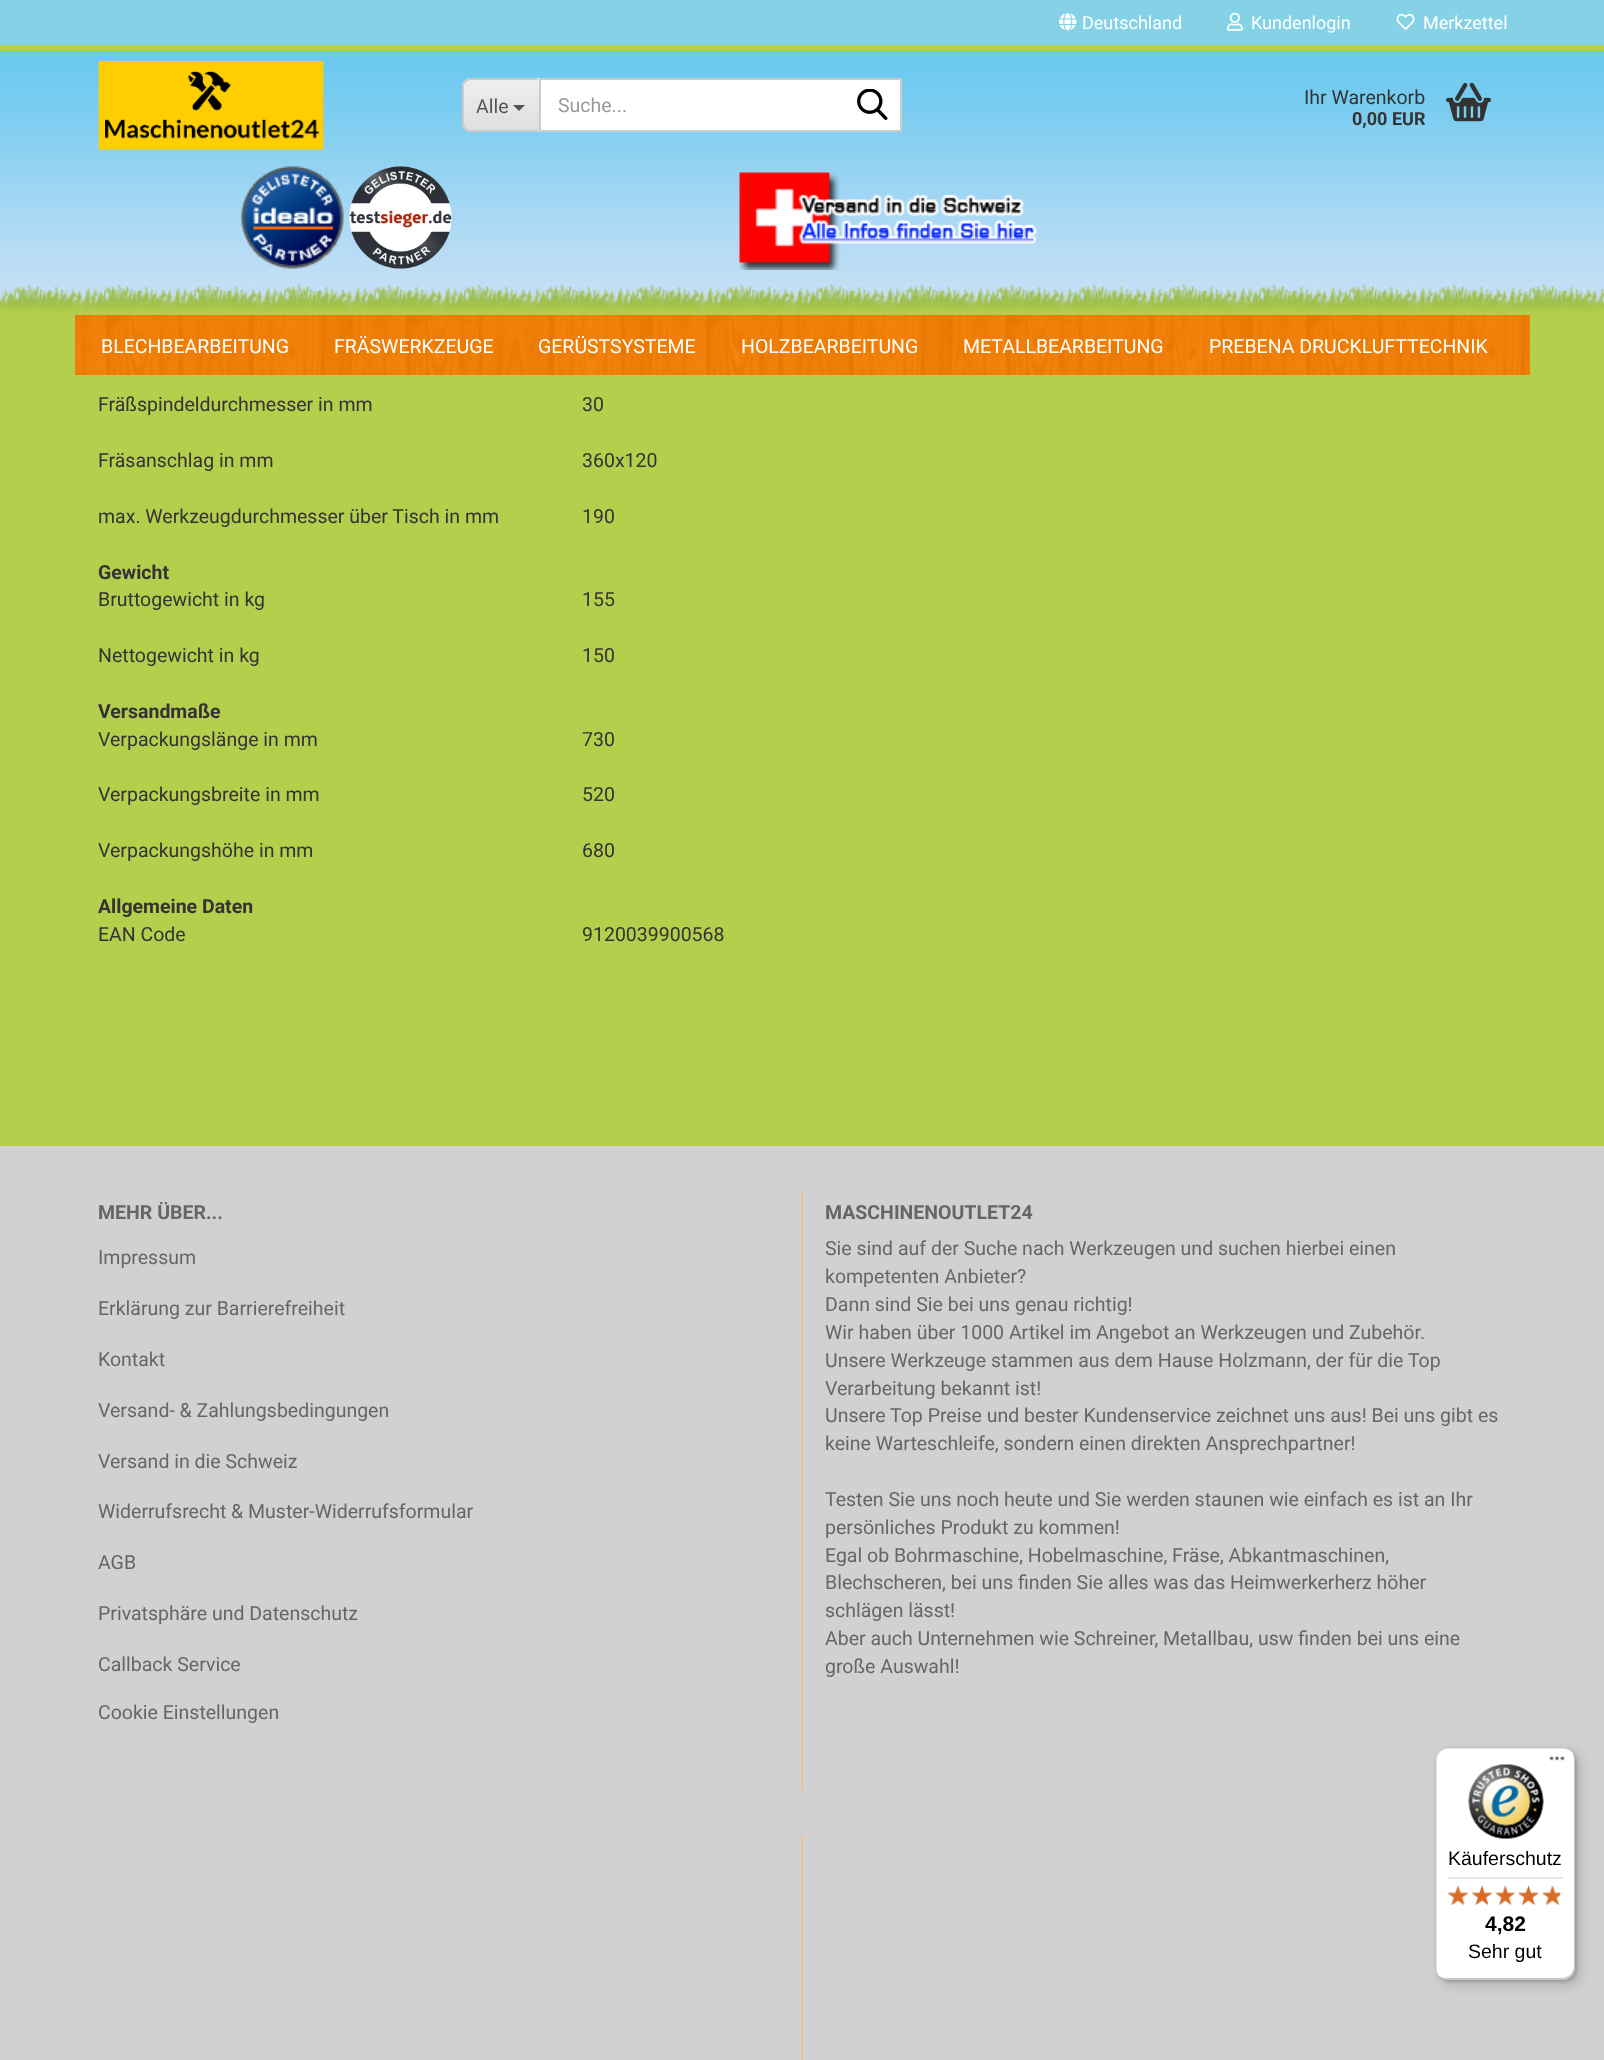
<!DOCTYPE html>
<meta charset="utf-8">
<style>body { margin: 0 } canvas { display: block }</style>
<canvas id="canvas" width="1604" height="2060"></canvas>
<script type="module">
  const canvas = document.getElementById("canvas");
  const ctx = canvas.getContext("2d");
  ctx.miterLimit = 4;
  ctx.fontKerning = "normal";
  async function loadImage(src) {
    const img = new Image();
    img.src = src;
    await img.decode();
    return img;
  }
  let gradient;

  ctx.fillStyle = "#b5ce4c";
  ctx.fillRect(0, 0, 1604, 2060);
  ctx.drawImage(await loadImage("img1.png"), 0, 51, 1604, 264);
  ctx.fillStyle = "#85d2e6";
  ctx.fillRect(0, 0, 1604, 45);
  ctx.drawImage(await loadImage("img2.png"), 1059, 13, 18, 18);
  ctx.font = "18px Roboto";
  ctx.fillStyle = "#ffffff";
  ctx.fillText("Deutschland", 1082, 29);
  ctx.drawImage(await loadImage("img3.png"), 1227, 12, 16, 19);
  ctx.fillText("Kundenlogin", 1251, 29);
  ctx.drawImage(await loadImage("img4.png"), 1396, 13, 19, 17);
  ctx.fillText("Merkzettel", 1423, 29);
  ctx.drawImage(await loadImage("img5.png"), 98, 60, 226, 90);
  ctx.fillStyle = "#f3f3f3";
  ctx.beginPath();
  ctx.roundRect(462, 78, 77, 54, [9, 0, 0, 9]);
  ctx.fill();
  ctx.save();
  ctx.beginPath();
  ctx.roundRect(462, 78, 77, 54, [9, 0, 0, 9]);
  ctx.clip();
  gradient = ctx.createLinearGradient(501, 80, 501, 131);
  gradient.addColorStop(0, "#eeeeee");
  gradient.addColorStop(1, "#dedede");
  ctx.fillStyle = gradient;
  ctx.fillRect(462, 80, 77, 51);
  ctx.restore();
  ctx.fillStyle = "#cccccc";
  ctx.beginPath();
  ctx.moveTo(471, 78);
  ctx.lineTo(538, 78);
  ctx.lineTo(538, 132);
  ctx.lineTo(471, 132);
  ctx.bezierCurveTo(466, 132, 462, 128, 462, 123);
  ctx.lineTo(462, 87);
  ctx.bezierCurveTo(462, 82, 466, 78, 471, 78);
  ctx.closePath();
  ctx.moveTo(471, 80);
  ctx.lineTo(538, 80);
  ctx.lineTo(538, 130);
  ctx.lineTo(471, 130);
  ctx.bezierCurveTo(467, 130, 464, 127, 464, 123);
  ctx.lineTo(464, 87);
  ctx.bezierCurveTo(464, 83, 467, 80, 471, 80);
  ctx.closePath();
  ctx.fill("evenodd");
  ctx.font = "19.5px Roboto";
  ctx.fillStyle = "#555555";
  ctx.fillText("Alle", 476, 113);
  ctx.beginPath();
  ctx.moveTo(513, 105);
  ctx.lineTo(525, 105);
  ctx.lineTo(519, 111);
  ctx.closePath();
  ctx.fill();
  ctx.fillStyle = "#ffffff";
  ctx.beginPath();
  ctx.rect(540, 79, 361, 52);
  ctx.fill();
  ctx.strokeStyle = "#cccccc";
  ctx.lineWidth = 2;
  ctx.stroke();
  ctx.fillStyle = "#999999";
  ctx.fillText("Suche...", 558, 112);
  ctx.drawImage(await loadImage("img6.png"), 857, 89, 31, 31);
  ctx.fillStyle = "#333333";
  ctx.fillText("Ihr Warenkorb", 1304, 104);
  ctx.font = "bold 18px Roboto";
  ctx.fillText("0,00 EUR", 1352, 125);
  ctx.drawImage(await loadImage("img7.png"), 1446, 82, 45, 40);
  ctx.drawImage(await loadImage("img8.png"), 241, 166, 103, 103);
  ctx.drawImage(await loadImage("img9.png"), 349, 166, 103, 103);
  ctx.drawImage(await loadImage("img10.png"), 739, 172, 298, 98);
  ctx.fillStyle = "#f98001";
  ctx.fillRect(75, 315, 1455, 60);
  ctx.drawImage(await loadImage("img11.png"), 75, 315, 1455, 60);
  ctx.font = "19.5px Roboto";
  ctx.fillStyle = "#ffffff";
  ctx.fillText("BLECHBEARBEITUNG", 101, 353);
  ctx.fillText("FRÄSWERKZEUGE", 334, 353);
  ctx.fillText("GERÜSTSYSTEME", 538, 353);
  ctx.fillText("HOLZBEARBEITUNG", 741, 353);
  ctx.fillText("METALLBEARBEITUNG", 963, 353);
  ctx.fillText("PREBENA DRUCKLUFTTECHNIK", 1209, 353);
  ctx.fillStyle = "#333333";
  ctx.fillText("Fräßspindeldurchmesser in mm", 98, 411);
  ctx.fillText("30", 582, 411);
  ctx.fillText("Fräsanschlag in mm", 98, 467);
  ctx.fillText("360x120", 582, 467);
  ctx.fillText("max. Werkzeugdurchmesser über Tisch in mm", 98, 523);
  ctx.fillText("190", 582, 523);
  ctx.font = "bold 19.5px Roboto";
  ctx.fillText("Gewicht", 98, 579);
  ctx.font = "19.5px Roboto";
  ctx.fillText("Bruttogewicht in kg", 98, 606);
  ctx.fillText("155", 582, 606);
  ctx.fillText("Nettogewicht in kg", 98, 662);
  ctx.fillText("150", 582, 662);
  ctx.font = "bold 19.5px Roboto";
  ctx.fillText("Versandmaße", 98, 718);
  ctx.font = "19.5px Roboto";
  ctx.fillText("Verpackungslänge in mm", 98, 746);
  ctx.fillText("730", 582, 746);
  ctx.fillText("Verpackungsbreite in mm", 98, 801);
  ctx.fillText("520", 582, 801);
  ctx.fillText("Verpackungshöhe in mm", 98, 857);
  ctx.fillText("680", 582, 857);
  ctx.font = "bold 19.5px Roboto";
  ctx.fillText("Allgemeine Daten", 98, 913);
  ctx.font = "19.5px Roboto";
  ctx.fillText("EAN Code", 98, 941);
  ctx.fillText("9120039900568", 582, 941);
  ctx.fillStyle = "#d1d1d1";
  ctx.fillRect(0, 1146, 1604, 914);
  ctx.fillStyle = "#e9c299";
  ctx.fillRect(801, 1191, 2, 600);
  ctx.font = "bold 19.5px Roboto";
  ctx.fillStyle = "#666666";
  ctx.fillText("MEHR ÜBER...", 98, 1219);
  ctx.font = "19.5px Roboto";
  ctx.fillText("Impressum", 98, 1264);
  ctx.fillText("Erklärung zur Barrierefreiheit", 98, 1315);
  ctx.fillText("Kontakt", 98, 1366);
  ctx.fillText("Versand- & Zahlungsbedingungen", 98, 1417);
  ctx.fillText("Versand in die Schweiz", 98, 1468);
  ctx.fillText("Widerrufsrecht & Muster-Widerrufsformular", 98, 1518);
  ctx.fillText("AGB", 98, 1569);
  ctx.fillText("Privatsphäre und Datenschutz", 98, 1620);
  ctx.fillText("Callback Service", 98, 1671);
  ctx.fillText("Cookie Einstellungen", 98, 1719);
  ctx.font = "bold 19.5px Roboto";
  ctx.fillText("MASCHINENOUTLET24", 825, 1219);
  ctx.font = "19.5px Roboto";
  ctx.fillText("Sie sind auf der Suche nach Werkzeugen und suchen hierbei einen", 825, 1255);
  ctx.fillText("kompetenten Anbieter?", 825, 1283);
  ctx.fillText("Dann sind Sie bei uns genau richtig!", 825, 1311);
  ctx.fillText("Wir haben über 1000 Artikel im Angebot an Werkzeugen und Zubehör.", 825, 1339);
  ctx.fillText("Unsere Werkzeuge stammen aus dem Hause Holzmann, der für die Top", 825, 1367);
  ctx.fillText("Verarbeitung bekannt ist!", 825, 1395);
  ctx.fillText("Unsere Top Preise und bester Kundenservice zeichnet uns aus! Bei uns gibt es", 825, 1422);
  ctx.fillText("keine Warteschleife, sondern einen direkten Ansprechpartner!", 825, 1450);
  ctx.fillText("Testen Sie uns noch heute und Sie werden staunen wie einfach es ist an Ihr", 825, 1506);
  ctx.fillText("persönliches Produkt zu kommen!", 825, 1534);
  ctx.fillText("Egal ob Bohrmaschine, Hobelmaschine, Fräse, Abkantmaschinen,", 825, 1562);
  ctx.fillText("Blechscheren, bei uns finden Sie alles was das Heimwerkerherz höher", 825, 1589);
  ctx.fillText("schlägen lässt!", 825, 1617);
  ctx.fillText("Aber auch Unternehmen wie Schreiner, Metallbau, usw finden bei uns eine", 825, 1645);
  ctx.fillText("große Auswahl!", 825, 1673);
  ctx.fillStyle = "#e9c299";
  ctx.fillRect(801, 1836, 2, 224);
  ctx.fillStyle = "rgba(0, 0, 0, 0.15)";
  ctx.filter = "blur(6px)";
  ctx.beginPath();
  ctx.roundRect(1440, 1752, 140, 233, 12);
  ctx.fill();
  ctx.filter = "none";
  ctx.filter = "blur(1.5px)";
  ctx.beginPath();
  ctx.roundRect(1437, 1749, 140, 233, 12);
  ctx.fill();
  ctx.filter = "none";
  ctx.fillStyle = "#ffffff";
  ctx.beginPath();
  ctx.roundRect(1436, 1748, 139, 232, 12);
  ctx.fill();
  ctx.fillStyle = "rgba(0, 0, 0, 0.1)";
  ctx.beginPath();
  ctx.moveTo(1449, 1749);
  ctx.lineTo(1564, 1749);
  ctx.bezierCurveTo(1567, 1749, 1569, 1750, 1571, 1751);
  ctx.bezierCurveTo(1569, 1749, 1566, 1748, 1563, 1748);
  ctx.lineTo(1448, 1748);
  ctx.bezierCurveTo(1441, 1748, 1436, 1753, 1436, 1760);
  ctx.lineTo(1436, 1968);
  ctx.bezierCurveTo(1436, 1970, 1437, 1973, 1438, 1975);
  ctx.lineTo(1437, 1970);
  ctx.lineTo(1437, 1761);
  ctx.bezierCurveTo(1437, 1754, 1442, 1749, 1449, 1749);
  ctx.closePath();
  ctx.fill();
  ctx.fillStyle = "rgba(0, 0, 0, 0.2)";
  ctx.beginPath();
  ctx.moveTo(1439, 1976);
  ctx.bezierCurveTo(1441, 1978, 1444, 1980, 1448, 1980);
  ctx.lineTo(1563, 1980);
  ctx.bezierCurveTo(1570, 1980, 1575, 1975, 1575, 1968);
  ctx.lineTo(1575, 1760);
  ctx.bezierCurveTo(1575, 1758, 1574, 1755, 1573, 1754);
  ctx.lineTo(1574, 1758);
  ctx.lineTo(1574, 1966);
  ctx.bezierCurveTo(1574, 1973, 1568, 1978, 1562, 1978);
  ctx.lineTo(1446, 1978);
  ctx.bezierCurveTo(1443, 1978, 1441, 1977, 1439, 1976);
  ctx.closePath();
  ctx.fill();
  ctx.fillStyle = "rgba(50, 50, 50, 0.2)";
  ctx.beginPath();
  ctx.moveTo(1440, 1977);
  ctx.bezierCurveTo(1442, 1979, 1445, 1980, 1448, 1980);
  ctx.lineTo(1563, 1980);
  ctx.bezierCurveTo(1570, 1980, 1575, 1975, 1575, 1968);
  ctx.lineTo(1575, 1760);
  ctx.bezierCurveTo(1575, 1757, 1574, 1754, 1572, 1752);
  ctx.bezierCurveTo(1573, 1754, 1574, 1756, 1574, 1759);
  ctx.lineTo(1574, 1967);
  ctx.bezierCurveTo(1574, 1974, 1569, 1979, 1562, 1979);
  ctx.lineTo(1447, 1979);
  ctx.bezierCurveTo(1444, 1979, 1442, 1978, 1440, 1977);
  ctx.closePath();
  ctx.fill();
  ctx.fillStyle = "rgba(255, 255, 255, 0.3)";
  ctx.beginPath();
  ctx.moveTo(1440, 1977);
  ctx.bezierCurveTo(1442, 1979, 1445, 1980, 1448, 1980);
  ctx.lineTo(1563, 1980);
  ctx.bezierCurveTo(1570, 1980, 1575, 1975, 1575, 1968);
  ctx.lineTo(1575, 1760);
  ctx.bezierCurveTo(1575, 1757, 1574, 1754, 1572, 1752);
  ctx.bezierCurveTo(1573, 1754, 1574, 1756, 1574, 1759);
  ctx.lineTo(1574, 1967);
  ctx.bezierCurveTo(1574, 1974, 1569, 1979, 1562, 1979);
  ctx.lineTo(1447, 1979);
  ctx.bezierCurveTo(1444, 1979, 1442, 1978, 1440, 1977);
  ctx.closePath();
  ctx.fill();
  ctx.drawImage(await loadImage("img12.png"), 1549, 1756, 16, 5);
  ctx.drawImage(await loadImage("img13.png"), 1468, 1764, 76, 75);
  ctx.font = "19.5px Liberation Sans";
  ctx.fillStyle = "#000000";
  ctx.fillText("Käuferschutz", 1448, 1865);
  ctx.fillStyle = "#e5e5e5";
  ctx.fillRect(1448, 1877, 115, 2);
  ctx.drawImage(await loadImage("img19.png"), 1448, 1886, 20, 19);
  ctx.drawImage(await loadImage("img14.png"), 1447, 1885, 22, 20);
  ctx.drawImage(await loadImage("img20.png"), 1472, 1885, 20, 20);
  ctx.drawImage(await loadImage("img15.png"), 1472, 1885, 20, 20);
  ctx.drawImage(await loadImage("img21.png"), 1495, 1885, 20, 20);
  ctx.drawImage(await loadImage("img16.png"), 1495, 1885, 20, 20);
  ctx.drawImage(await loadImage("img22.png"), 1518, 1885, 21, 20);
  ctx.drawImage(await loadImage("img17.png"), 1518, 1885, 21, 20);
  ctx.drawImage(await loadImage("img23.png"), 1542, 1886, 21, 19);
  ctx.drawImage(await loadImage("img18.png"), 1542, 1885, 18, 20);
  ctx.font = "bold 21px Liberation Sans";
  ctx.fillStyle = "#000000";
  ctx.fillText("4,82", 1485, 1931);
  ctx.font = "19.5px Liberation Sans";
  ctx.fillText("Sehr gut", 1468, 1958);
</script>
